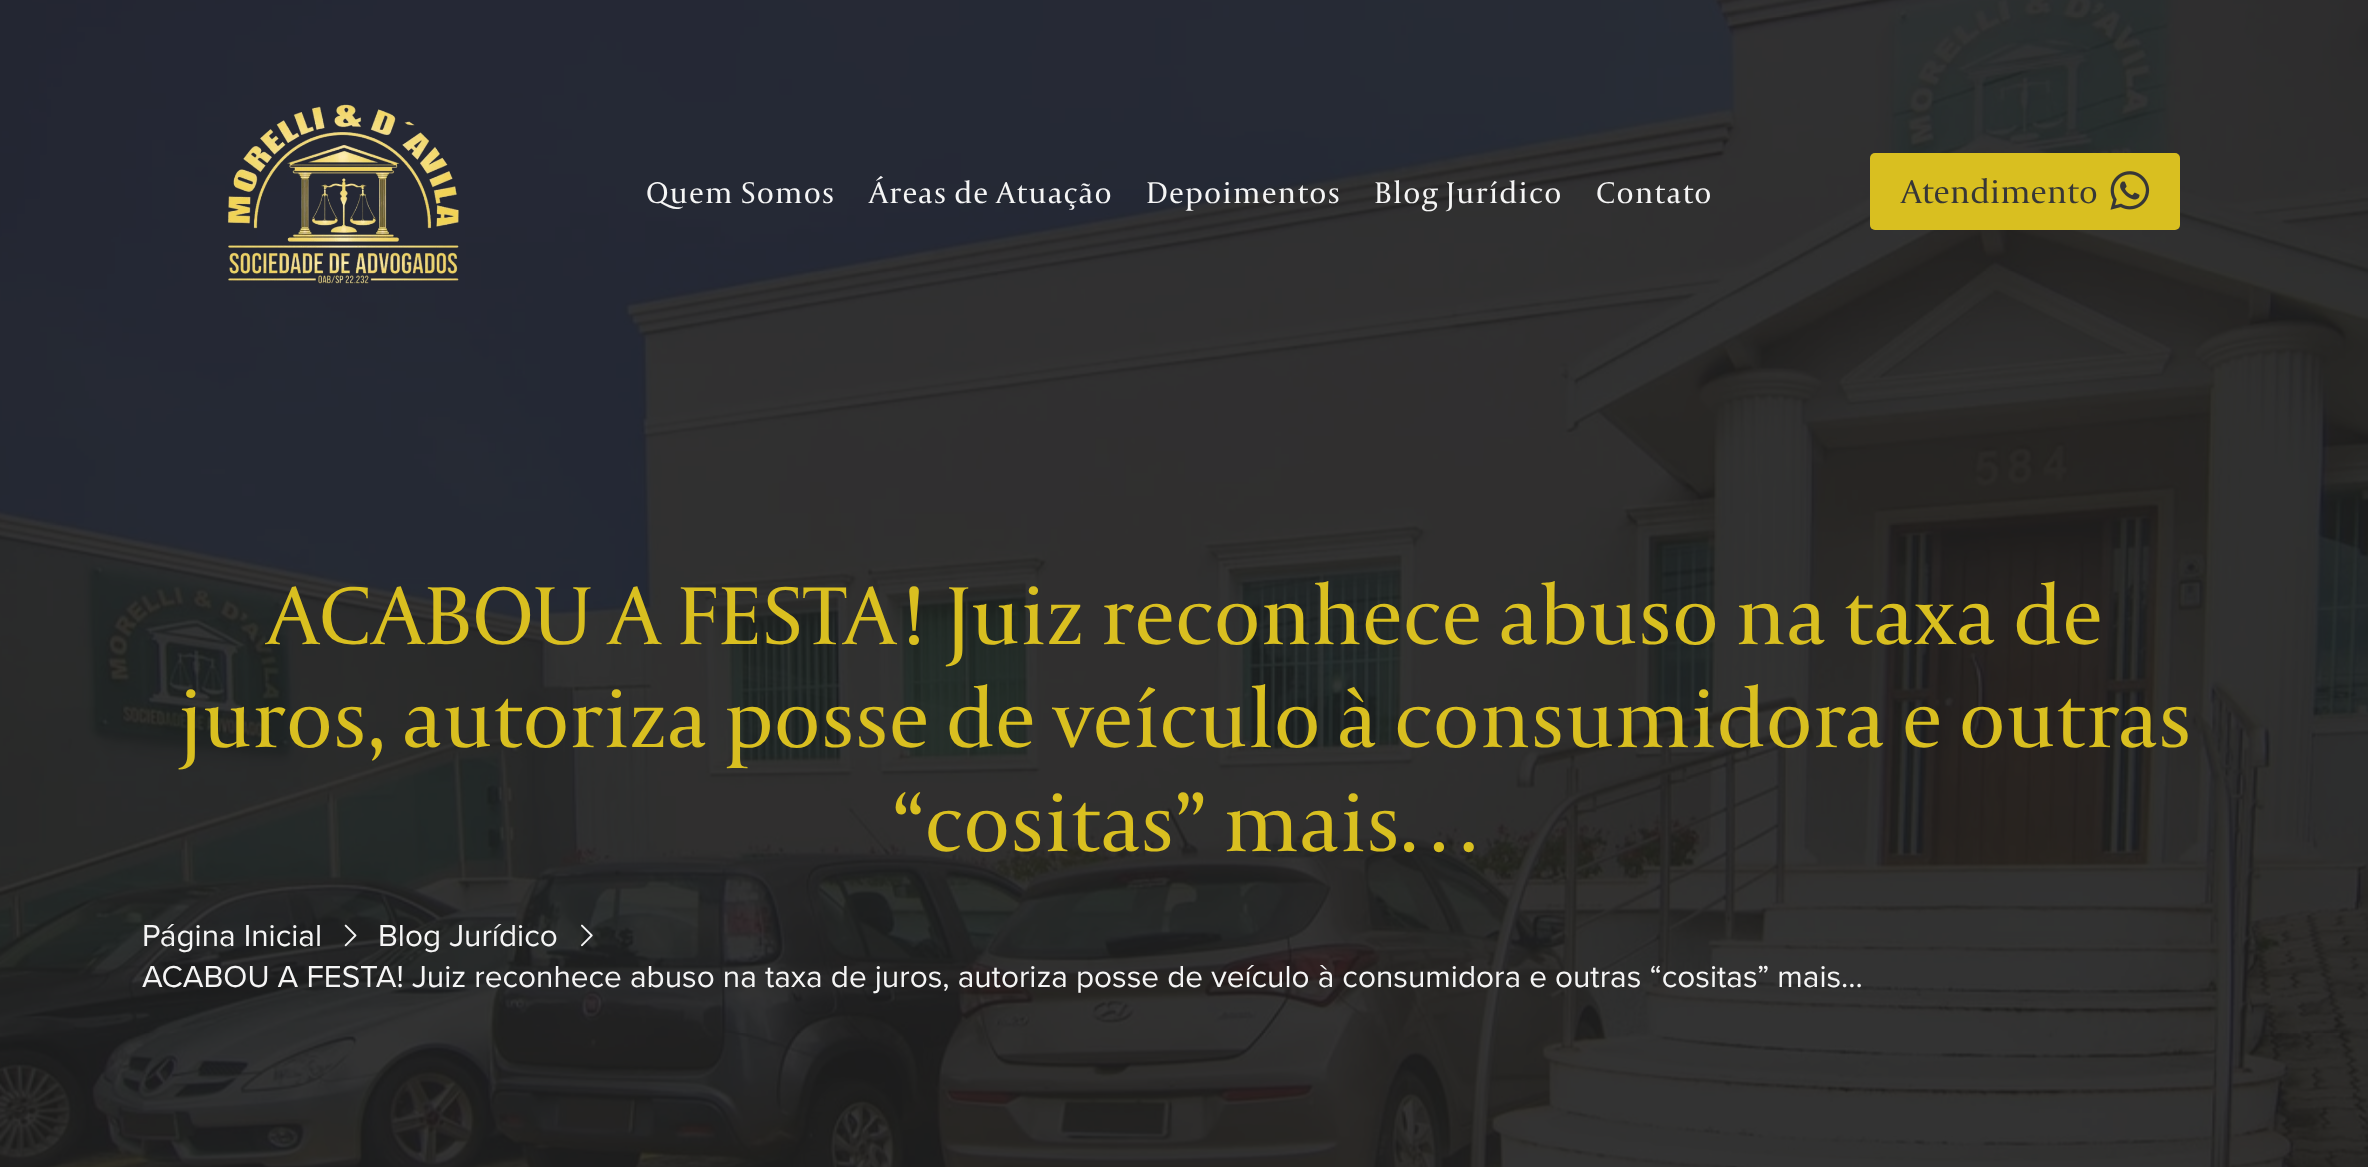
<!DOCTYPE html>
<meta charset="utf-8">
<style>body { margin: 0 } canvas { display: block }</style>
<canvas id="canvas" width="2368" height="1167"></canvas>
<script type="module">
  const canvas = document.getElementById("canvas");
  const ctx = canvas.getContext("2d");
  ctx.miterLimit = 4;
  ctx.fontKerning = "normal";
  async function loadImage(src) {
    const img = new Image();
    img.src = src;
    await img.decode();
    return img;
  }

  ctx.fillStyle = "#ffffff";
  ctx.fillRect(0, 0, 2368, 1167);
  ctx.drawImage(await loadImage("img3.png"), 0, 0, 2368, 1167);
  ctx.drawImage(await loadImage("img1.png"), 227, 104, 232, 180);
  ctx.letterSpacing = "1.1px";
  ctx.font = "31.5px 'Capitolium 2'";
  ctx.fillStyle = "#f5f5f5";
  ctx.fillText("Quem Somos", 646, 203);
  ctx.fillText("Áreas de Atuação", 869, 203);
  ctx.fillText("Depoimentos", 1146, 203);
  ctx.fillText("Blog Jurídico", 1374, 203);
  ctx.fillText("Contato", 1596, 203);
  ctx.fillStyle = "#d9bf20";
  ctx.beginPath();
  ctx.roundRect(1870, 153, 310, 77, 5);
  ctx.fill();
  ctx.letterSpacing = "0px";
  ctx.font = "34.5px 'Capitolium 2'";
  ctx.fillStyle = "#373737";
  ctx.fillText("Atendimento", 1901, 203);
  ctx.drawImage(await loadImage("img2.png"), 2110, 171, 40, 39);
  ctx.font = "86.4px 'Capitolium 2'";
  ctx.fillStyle = "#d9bf20";
  ctx.fillText("ACABOU A FESTA! Juiz reconhece abuso na taxa de", 267, 644);
  ctx.fillText("juros, autoriza posse de veículo à consumidora e outras", 178, 747);
  ctx.fillText("“cositas” mais…", 892, 851);
  ctx.font = "31.5px Proxima Nova";
  ctx.fillStyle = "#f5f5f5";
  ctx.fillText("Página Inicial", 142, 946);
  ctx.drawImage(await loadImage("img4.png"), 344, 924, 13, 23);
  ctx.fillText("Blog Jurídico", 378, 946);
  ctx.drawImage(await loadImage("img5.png"), 581, 924, 12, 23);
  ctx.fillText("ACABOU A FESTA! Juiz reconhece abuso na taxa de juros, autoriza posse de veículo à consumidora e outras “cositas” mais...", 142, 987);
</script>
